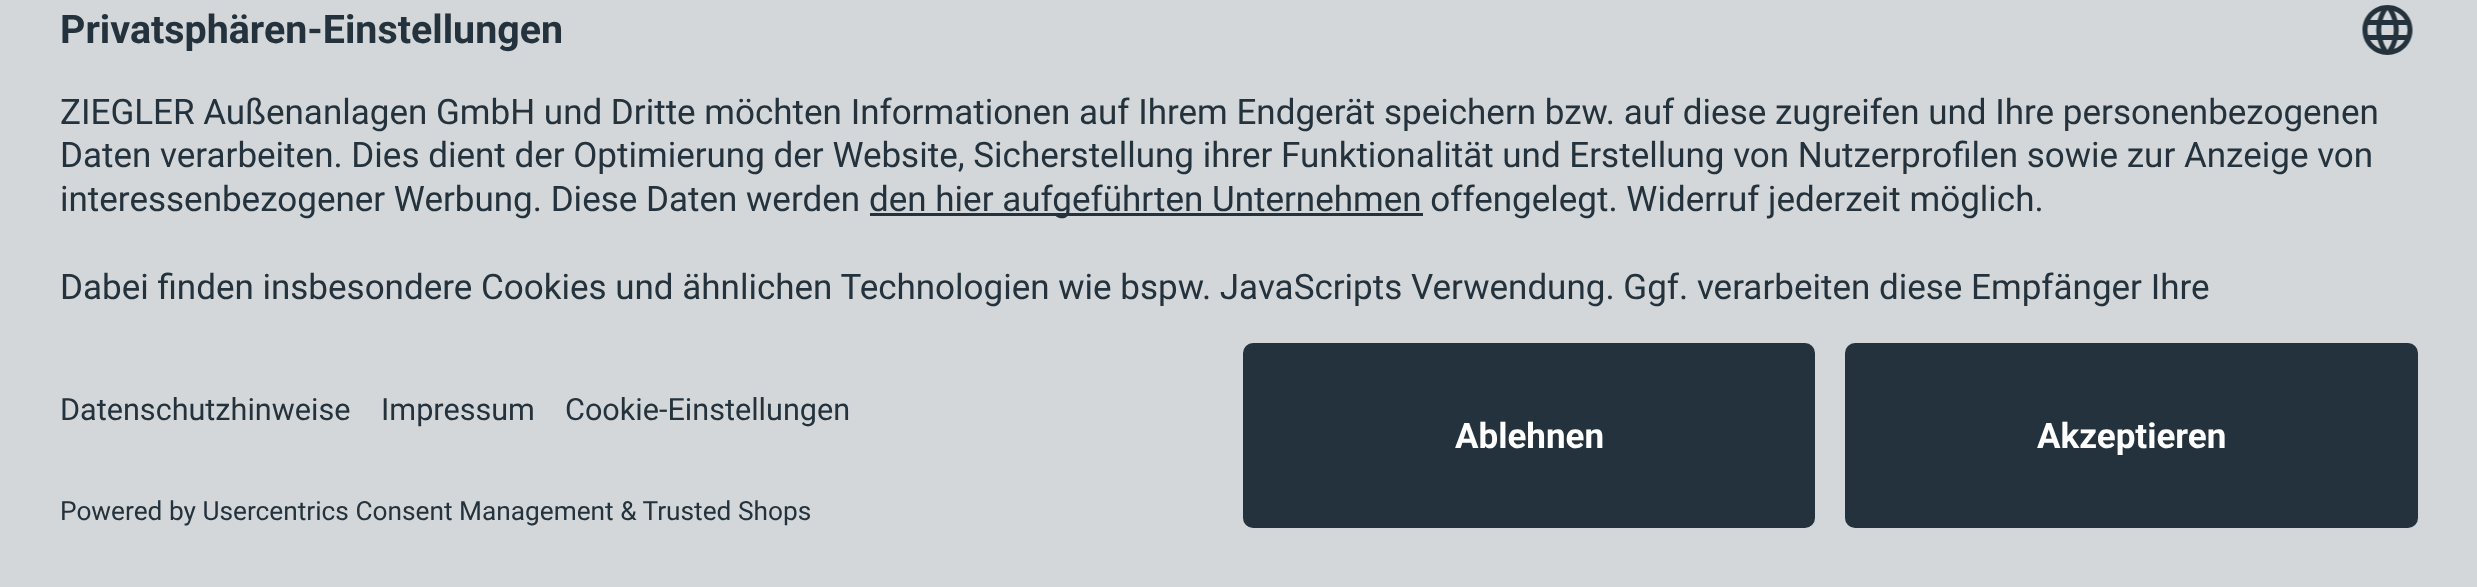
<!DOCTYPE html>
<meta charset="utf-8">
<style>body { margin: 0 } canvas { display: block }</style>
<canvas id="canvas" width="2477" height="587"></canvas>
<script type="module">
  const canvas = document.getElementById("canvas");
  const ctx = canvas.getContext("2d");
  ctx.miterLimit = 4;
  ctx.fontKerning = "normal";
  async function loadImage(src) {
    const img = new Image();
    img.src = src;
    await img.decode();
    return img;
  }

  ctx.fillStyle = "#d3d7d9";
  ctx.fillRect(0, 0, 2477, 587);
  ctx.font = "bold 39.4px Roboto";
  ctx.fillStyle = "#23323c";
  ctx.fillText("Privatsphären-Einstellungen", 60, 43);
  ctx.drawImage(await loadImage("img1.png"), 2362, 5, 51, 50);
  ctx.font = "35px Roboto";
  ctx.fillText("ZIEGLER Außenanlagen GmbH und Dritte möchten Informationen auf Ihrem Endgerät speichern bzw. auf diese zugreifen und Ihre personenbezogenen", 60, 124);
  ctx.fillText("Daten verarbeiten. Dies dient der Optimierung der Website, Sicherstellung ihrer Funktionalität und Erstellung von Nutzerprofilen sowie zur Anzeige von", 60, 167);
  ctx.fillText("interessenbezogener Werbung. Diese Daten werden", 60, 211);
  ctx.fillRect(870, 213, 553, 3);
  ctx.fillText("den hier aufgeführten Unternehmen offengelegt. Widerruf jederzeit möglich.", 869, 211);
  ctx.fillText("Dabei finden insbesondere Cookies und ähnlichen Technologien wie bspw. JavaScripts Verwendung. Ggf. verarbeiten diese Empfänger Ihre", 60, 299);
  ctx.font = "30.6px Roboto";
  ctx.fillText("Datenschutzhinweise", 60, 420);
  ctx.fillText("Impressum", 381, 420);
  ctx.fillText("Cookie-Einstellungen", 565, 420);
  ctx.font = "26.25px Roboto";
  ctx.fillText("Powered by Usercentrics Consent Management & Trusted Shops", 60, 520);
  ctx.beginPath();
  ctx.roundRect(1243, 343, 572, 185, 10);
  ctx.fill();
  ctx.font = "bold 35px Roboto";
  ctx.fillStyle = "#ffffff";
  ctx.fillText("Ablehnen", 1455, 448);
  ctx.fillStyle = "#23323c";
  ctx.beginPath();
  ctx.roundRect(1845, 343, 573, 185, 10);
  ctx.fill();
  ctx.fillStyle = "#ffffff";
  ctx.fillText("Akzeptieren", 2037, 448);
</script>
